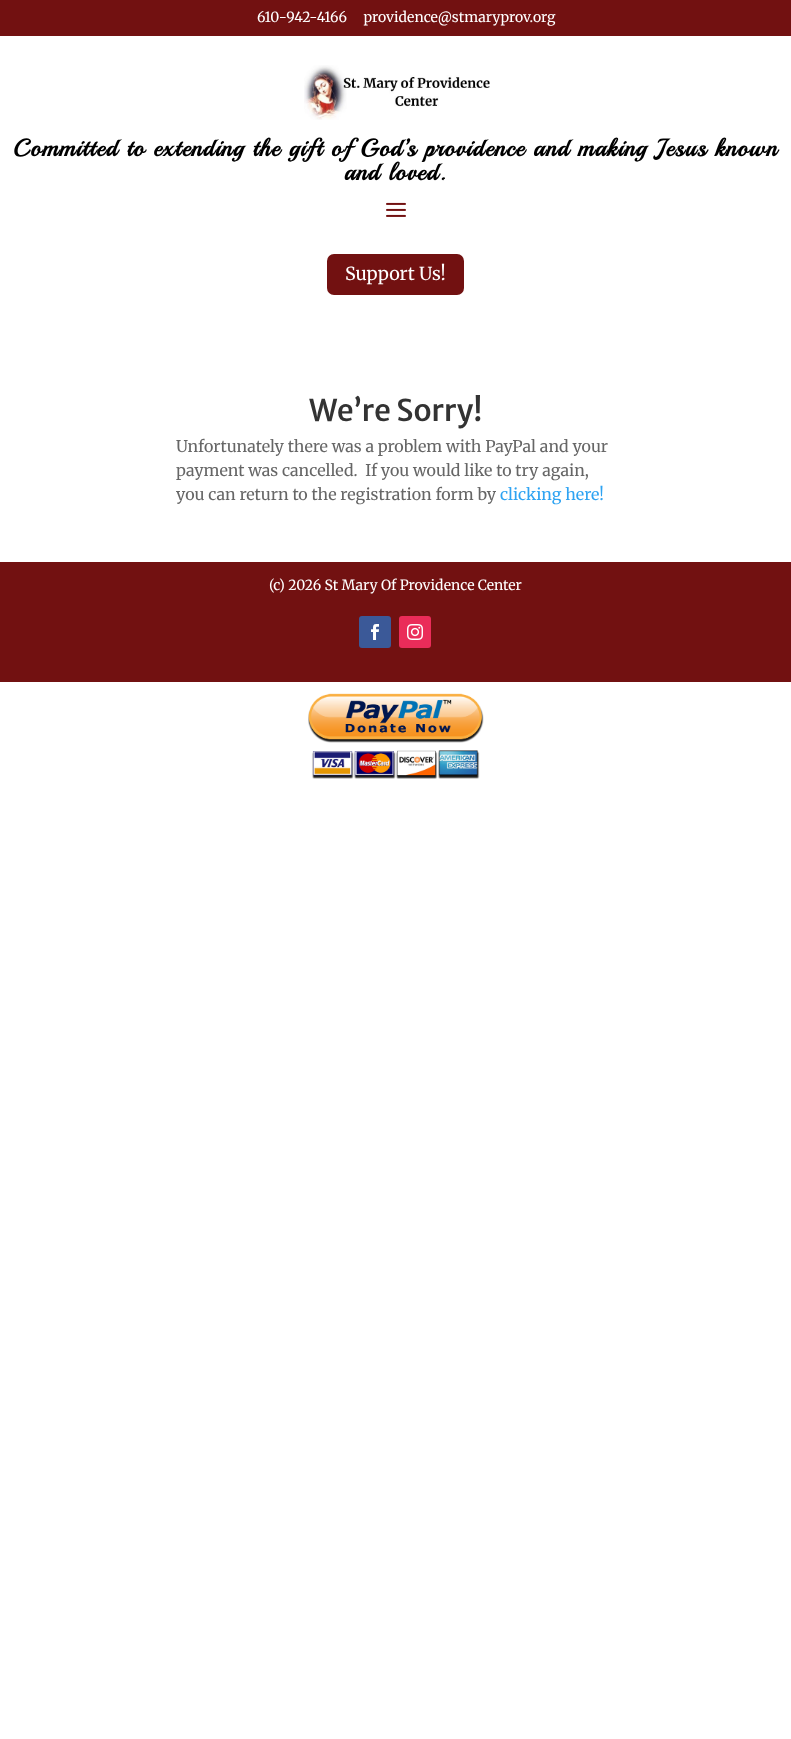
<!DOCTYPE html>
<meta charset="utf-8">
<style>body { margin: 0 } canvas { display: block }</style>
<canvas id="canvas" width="791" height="1739"></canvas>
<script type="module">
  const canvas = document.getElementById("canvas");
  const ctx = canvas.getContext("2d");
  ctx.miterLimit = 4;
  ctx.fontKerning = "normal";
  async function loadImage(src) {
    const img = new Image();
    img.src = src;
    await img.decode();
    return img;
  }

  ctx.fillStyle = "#ffffff";
  ctx.fillRect(0, 0, 791, 1739);
  ctx.fillStyle = "#721111";
  ctx.fillRect(0, 0, 791, 36);
  ctx.font = "14px Merriweather";
  ctx.fillStyle = "#ffffff";
  ctx.fillText("610-942-4166     providence@stmaryprov.org", 257, 22);
  ctx.drawImage(await loadImage("img1.png"), 304, 65, 186, 55);
  ctx.letterSpacing = "1px";
  ctx.font = "bold 24px Playball";
  ctx.fillStyle = "#000000";
  ctx.fillText("Committed to extending the gift of God’s providence and making Jesus known", 13, 156);
  ctx.fillText("and loved.", 344, 180);
  ctx.drawImage(await loadImage("img2.png"), 386, 202, 20, 15);
  ctx.fillStyle = "#721111";
  ctx.beginPath();
  ctx.roundRect(327, 254, 137, 41, 7);
  ctx.fill();
  ctx.letterSpacing = "0px";
  ctx.font = "18px Merriweather";
  ctx.fillStyle = "#ffffff";
  ctx.fillText("Support Us!", 345, 280);
  ctx.font = "500 30px Merriweather Sans";
  ctx.fillStyle = "#333333";
  ctx.fillText("We’re Sorry!", 309, 421);
  ctx.font = "16px Merriweather";
  ctx.fillStyle = "#666666";
  ctx.fillText("Unfortunately there was a problem with PayPal and your", 176, 452);
  ctx.fillText("payment was cancelled.  If you would like to try again,", 176, 476);
  ctx.fillText("you can return to the registration form by", 176, 500);
  ctx.fillStyle = "#2ea3f2";
  ctx.fillText("clicking here!", 500, 500);
  ctx.fillStyle = "#721111";
  ctx.fillRect(0, 562, 791, 120);
  ctx.font = "14px Merriweather";
  ctx.fillStyle = "#ffffff";
  ctx.fillText("(c) 2026 St Mary Of Providence Center", 269, 590);
  ctx.fillStyle = "#3b5998";
  ctx.beginPath();
  ctx.roundRect(359, 616, 32, 32, 3);
  ctx.fill();
  ctx.drawImage(await loadImage("img3.png"), 371, 624, 8, 16);
  ctx.fillStyle = "#ea2c59";
  ctx.beginPath();
  ctx.roundRect(399, 616, 32, 32, 3);
  ctx.fill();
  ctx.drawImage(await loadImage("img4.png"), 407, 624, 16, 16);
  ctx.drawImage(await loadImage("img5.png"), 308, 693, 176, 86);
</script>
